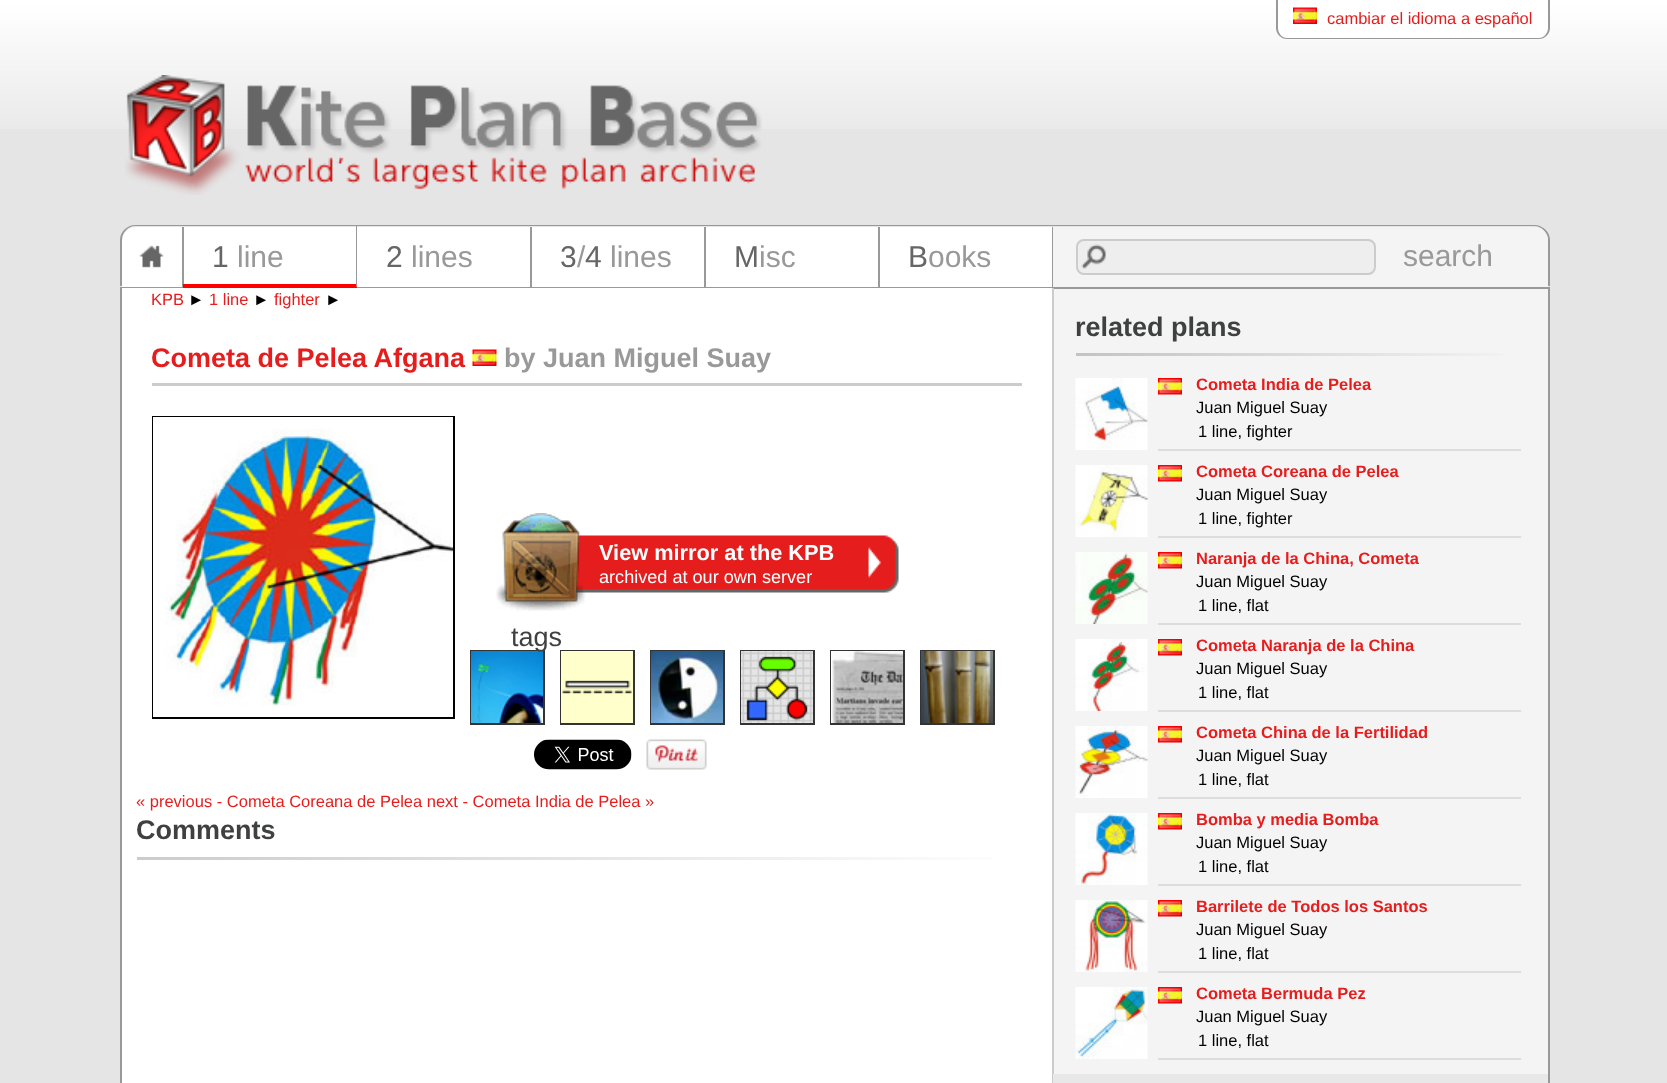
<!DOCTYPE html>
<meta charset="utf-8">
<style>body { margin: 0 } canvas { display: block }</style>
<canvas id="canvas" width="1667" height="1083"></canvas>
<script type="module">
  const canvas = document.getElementById("canvas");
  const ctx = canvas.getContext("2d");
  ctx.miterLimit = 4;
  ctx.fontKerning = "normal";
  async function loadImage(src) {
    const img = new Image();
    img.src = src;
    await img.decode();
    return img;
  }
  let gradient;

  ctx.fillStyle = "#e5e5e5";
  ctx.fillRect(0, 0, 1667, 1083);
  ctx.drawImage(await loadImage("img1.png"), 0, 0, 1667, 129);
  ctx.fillStyle = "#ffffff";
  ctx.beginPath();
  ctx.roundRect(1277, 0, 273, 39, [0, 0, 11, 11]);
  ctx.fill();
  ctx.fillStyle = "#999999";
  ctx.beginPath();
  ctx.moveTo(1276, 0);
  ctx.lineTo(1550, 0);
  ctx.lineTo(1550, 28);
  ctx.bezierCurveTo(1550, 34, 1545, 39, 1539, 39);
  ctx.lineTo(1287, 39);
  ctx.bezierCurveTo(1281, 39, 1276, 34, 1276, 28);
  ctx.closePath();
  ctx.moveTo(1278, 0);
  ctx.lineTo(1548, 0);
  ctx.lineTo(1548, 28);
  ctx.bezierCurveTo(1548, 33, 1544, 38, 1539, 38);
  ctx.lineTo(1287, 38);
  ctx.bezierCurveTo(1282, 38, 1278, 33, 1278, 28);
  ctx.closePath();
  ctx.fill("evenodd");
  ctx.drawImage(await loadImage("img2.png"), 1293, 7, 24, 17);
  ctx.font = "16.5px Liberation Sans";
  ctx.fillStyle = "#e71d1d";
  ctx.fillText("cambiar el idioma a español", 1327, 24);
  ctx.drawImage(await loadImage("img3.png"), 125, 75, 637, 120);
  ctx.fillStyle = "#ffffff";
  ctx.beginPath();
  ctx.roundRect(122, 227, 1426, 60, [14, 14, 0, 0]);
  ctx.fill();
  ctx.fillStyle = "#999999";
  ctx.beginPath();
  ctx.moveTo(135, 225);
  ctx.lineTo(1534, 225);
  ctx.bezierCurveTo(1543, 225, 1550, 232, 1550, 240);
  ctx.lineTo(1550, 286);
  ctx.lineTo(120, 286);
  ctx.lineTo(120, 240);
  ctx.bezierCurveTo(120, 232, 127, 225, 135, 225);
  ctx.closePath();
  ctx.moveTo(135, 226);
  ctx.lineTo(1534, 226);
  ctx.bezierCurveTo(1542, 226, 1548, 233, 1548, 240);
  ctx.lineTo(1548, 286);
  ctx.lineTo(122, 286);
  ctx.lineTo(122, 240);
  ctx.bezierCurveTo(122, 233, 128, 226, 135, 226);
  ctx.closePath();
  ctx.fill("evenodd");
  ctx.fillRect(182, 227, 2, 60);
  ctx.drawImage(await loadImage("img4.png"), 139, 245, 25, 23);
  ctx.fillRect(120, 287, 1430, 2);
  ctx.beginPath();
  ctx.moveTo(357, 226);
  ctx.lineTo(357, 288);
  ctx.lineTo(356, 284);
  ctx.lineTo(356, 226);
  ctx.closePath();
  ctx.fill();
  ctx.fillStyle = "#ff0000";
  ctx.beginPath();
  ctx.moveTo(357, 288);
  ctx.lineTo(183, 288);
  ctx.lineTo(183, 284);
  ctx.lineTo(356, 284);
  ctx.closePath();
  ctx.fill();
  ctx.font = "30px Liberation Sans";
  ctx.fillStyle = "#666666";
  ctx.fillText("1", 212, 267);
  ctx.fillStyle = "#999999";
  ctx.fillText("line", 237, 267);
  ctx.fillRect(530, 227, 2, 60);
  ctx.fillStyle = "#666666";
  ctx.fillText("2", 386, 267);
  ctx.fillStyle = "#999999";
  ctx.fillText("lines", 411, 267);
  ctx.fillRect(704, 227, 2, 60);
  ctx.fillStyle = "#666666";
  ctx.fillText("3", 560, 267);
  ctx.fillStyle = "#999999";
  ctx.fillText("/", 577, 267);
  ctx.fillStyle = "#666666";
  ctx.fillText("4", 585, 267);
  ctx.fillStyle = "#999999";
  ctx.fillText("lines", 610, 267);
  ctx.fillRect(878, 227, 2, 60);
  ctx.fillStyle = "#666666";
  ctx.fillText("M", 734, 267);
  ctx.fillStyle = "#999999";
  ctx.fillText("isc", 759, 267);
  ctx.fillRect(1052, 227, 1, 60);
  ctx.fillStyle = "#666666";
  ctx.fillText("B", 908, 267);
  ctx.fillStyle = "#999999";
  ctx.fillText("ooks", 928, 267);
  ctx.fillStyle = "#f4f4f4";
  ctx.beginPath();
  ctx.roundRect(1053, 227, 495, 60, [0, 14, 0, 0]);
  ctx.fill();
  ctx.fillStyle = "#eeeeee";
  ctx.beginPath();
  ctx.roundRect(1076, 239, 300, 36, 8);
  ctx.fill();
  ctx.drawImage(await loadImage("img5.png"), 1081, 244, 25, 25);
  ctx.beginPath();
  ctx.roundRect(1077, 240, 298, 34, 7);
  ctx.strokeStyle = "#cccccc";
  ctx.lineWidth = 2;
  ctx.stroke();
  ctx.fillStyle = "#999999";
  ctx.fillText("search", 1403, 266);
  ctx.fillStyle = "#f4f4f4";
  ctx.fillRect(1054, 289, 494, 785);
  ctx.fillStyle = "#999999";
  ctx.fillRect(1548, 287, 2, 796);
  ctx.fillRect(120, 287, 2, 796);
  ctx.fillStyle = "#ffffff";
  ctx.fillRect(122, 288, 930, 795);
  ctx.fillStyle = "#cccccc";
  ctx.fillRect(1052, 288, 2, 795);
  ctx.fillRect(152, 383, 870, 3);
  ctx.font = "16.5px Liberation Sans";
  ctx.fillStyle = "#e71d1d";
  ctx.fillText("KPB", 151, 305);
  ctx.fillStyle = "#000000";
  ctx.fillText("►", 188, 305);
  ctx.fillStyle = "#e71d1d";
  ctx.fillText("1 line", 209, 305);
  ctx.fillStyle = "#000000";
  ctx.fillText("►", 253, 305);
  ctx.fillStyle = "#e71d1d";
  ctx.fillText("fighter", 274, 305);
  ctx.fillStyle = "#000000";
  ctx.fillText("►", 325, 305);
  ctx.font = "bold 27px Liberation Sans";
  ctx.fillStyle = "#e71d1d";
  ctx.fillText("Cometa de Pelea Afgana", 151, 367);
  ctx.drawImage(await loadImage("img6.png"), 472, 349, 25, 17);
  ctx.fillStyle = "#999999";
  ctx.fillText("by Juan Miguel Suay", 504, 367);
  ctx.strokeStyle = "#000000";
  ctx.strokeRect(153, 417, 301, 301);
  ctx.drawImage(await loadImage("img7.png"), 153, 417, 300, 300);
  ctx.drawImage(await loadImage("img8.png"), 496, 513, 403, 98);
  ctx.font = "bold 21.75px Liberation Sans";
  ctx.fillStyle = "#ffffff";
  ctx.fillText("View mirror at the KPB", 599, 560);
  ctx.font = "18.1px Liberation Sans";
  ctx.fillText("archived at our own server", 599, 583);
  ctx.strokeStyle = "#333333";
  ctx.strokeRect(471, 651, 73, 73);
  ctx.drawImage(await loadImage("img9.png"), 471, 651, 72, 72);
  ctx.strokeRect(561, 651, 73, 73);
  ctx.drawImage(await loadImage("img10.png"), 561, 651, 72, 72);
  ctx.font = "27px Liberation Sans";
  ctx.fillStyle = "#3f4040";
  ctx.fillText("tags", 511, 646);
  ctx.strokeRect(651, 651, 73, 73);
  ctx.drawImage(await loadImage("img11.png"), 651, 651, 72, 72);
  ctx.strokeRect(741, 651, 73, 73);
  ctx.drawImage(await loadImage("img12.png"), 741, 651, 72, 72);
  ctx.strokeRect(831, 651, 73, 73);
  ctx.drawImage(await loadImage("img13.png"), 831, 651, 72, 72);
  ctx.strokeRect(921, 651, 73, 73);
  ctx.drawImage(await loadImage("img14.png"), 921, 651, 72, 72);
  ctx.drawImage(await loadImage("img15.png"), 534, 739, 98, 31);
  ctx.drawImage(await loadImage("img16.png"), 646, 739, 61, 31);
  ctx.font = "16.5px Liberation Sans";
  ctx.fillStyle = "#e71d1d";
  ctx.fillText("« previous - Cometa Coreana de Pelea next - Cometa India de Pelea »", 136, 807);
  ctx.font = "bold 27px Liberation Sans";
  ctx.fillStyle = "#3f4040";
  ctx.fillText("Comments", 136, 839);
  gradient = ctx.createLinearGradient(137, 858, 1037, 858);
  gradient.addColorStop(0, "#cccccc");
  gradient.addColorStop(1, "#ffffff");
  ctx.fillStyle = gradient;
  ctx.fillRect(137, 857, 856, 3);
  ctx.fillStyle = "#3f4040";
  ctx.fillText("related plans", 1075, 336);
  gradient = ctx.createLinearGradient(1076, 354, 1526, 354);
  gradient.addColorStop(0, "#c3c3c3");
  gradient.addColorStop(1, "#f4f4f4");
  ctx.fillStyle = gradient;
  ctx.fillRect(1076, 353, 427, 3);
  ctx.drawImage(await loadImage("img17.png"), 1075, 378, 73, 72);
  ctx.font = "bold 16.5px Liberation Sans";
  ctx.fillStyle = "#e71d1d";
  ctx.fillText("Cometa India de Pelea", 1196, 390);
  ctx.font = "16.5px Liberation Sans";
  ctx.fillStyle = "#000000";
  ctx.fillText("Juan Miguel Suay", 1196, 413);
  ctx.fillStyle = "#dddddd";
  ctx.fillRect(1158, 449, 363, 2);
  ctx.drawImage(await loadImage("img18.png"), 1158, 378, 24, 17);
  ctx.fillStyle = "#000000";
  ctx.fillText("1 line, fighter", 1198, 437);
  ctx.drawImage(await loadImage("img19.png"), 1075, 465, 73, 72);
  ctx.font = "bold 16.5px Liberation Sans";
  ctx.fillStyle = "#e71d1d";
  ctx.fillText("Cometa Coreana de Pelea", 1196, 477);
  ctx.font = "16.5px Liberation Sans";
  ctx.fillStyle = "#000000";
  ctx.fillText("Juan Miguel Suay", 1196, 500);
  ctx.fillStyle = "#dddddd";
  ctx.fillRect(1158, 536, 363, 2);
  ctx.drawImage(await loadImage("img18.png"), 1158, 465, 24, 17);
  ctx.fillStyle = "#000000";
  ctx.fillText("1 line, fighter", 1198, 524);
  ctx.drawImage(await loadImage("img20.png"), 1075, 552, 73, 72);
  ctx.font = "bold 16.5px Liberation Sans";
  ctx.fillStyle = "#e71d1d";
  ctx.fillText("Naranja de la China, Cometa", 1196, 564);
  ctx.font = "16.5px Liberation Sans";
  ctx.fillStyle = "#000000";
  ctx.fillText("Juan Miguel Suay", 1196, 587);
  ctx.fillStyle = "#dddddd";
  ctx.fillRect(1158, 623, 363, 2);
  ctx.drawImage(await loadImage("img18.png"), 1158, 552, 24, 17);
  ctx.fillStyle = "#000000";
  ctx.fillText("1 line, flat", 1198, 611);
  ctx.drawImage(await loadImage("img21.png"), 1075, 639, 73, 72);
  ctx.font = "bold 16.5px Liberation Sans";
  ctx.fillStyle = "#e71d1d";
  ctx.fillText("Cometa Naranja de la China", 1196, 651);
  ctx.font = "16.5px Liberation Sans";
  ctx.fillStyle = "#000000";
  ctx.fillText("Juan Miguel Suay", 1196, 674);
  ctx.fillStyle = "#dddddd";
  ctx.fillRect(1158, 710, 363, 2);
  ctx.drawImage(await loadImage("img18.png"), 1158, 639, 24, 17);
  ctx.fillStyle = "#000000";
  ctx.fillText("1 line, flat", 1198, 698);
  ctx.drawImage(await loadImage("img22.png"), 1075, 726, 73, 72);
  ctx.font = "bold 16.5px Liberation Sans";
  ctx.fillStyle = "#e71d1d";
  ctx.fillText("Cometa China de la Fertilidad", 1196, 738);
  ctx.font = "16.5px Liberation Sans";
  ctx.fillStyle = "#000000";
  ctx.fillText("Juan Miguel Suay", 1196, 761);
  ctx.fillStyle = "#dddddd";
  ctx.fillRect(1158, 797, 363, 2);
  ctx.drawImage(await loadImage("img18.png"), 1158, 726, 24, 17);
  ctx.fillStyle = "#000000";
  ctx.fillText("1 line, flat", 1198, 785);
  ctx.drawImage(await loadImage("img23.png"), 1075, 813, 73, 72);
  ctx.font = "bold 16.5px Liberation Sans";
  ctx.fillStyle = "#e71d1d";
  ctx.fillText("Bomba y media Bomba", 1196, 825);
  ctx.font = "16.5px Liberation Sans";
  ctx.fillStyle = "#000000";
  ctx.fillText("Juan Miguel Suay", 1196, 848);
  ctx.fillStyle = "#dddddd";
  ctx.fillRect(1158, 884, 363, 2);
  ctx.drawImage(await loadImage("img18.png"), 1158, 813, 24, 17);
  ctx.fillStyle = "#000000";
  ctx.fillText("1 line, flat", 1198, 872);
  ctx.drawImage(await loadImage("img24.png"), 1075, 900, 73, 72);
  ctx.font = "bold 16.5px Liberation Sans";
  ctx.fillStyle = "#e71d1d";
  ctx.fillText("Barrilete de Todos los Santos", 1196, 912);
  ctx.font = "16.5px Liberation Sans";
  ctx.fillStyle = "#000000";
  ctx.fillText("Juan Miguel Suay", 1196, 935);
  ctx.fillStyle = "#dddddd";
  ctx.fillRect(1158, 971, 363, 2);
  ctx.drawImage(await loadImage("img18.png"), 1158, 900, 24, 17);
  ctx.fillStyle = "#000000";
  ctx.fillText("1 line, flat", 1198, 959);
  ctx.drawImage(await loadImage("img25.png"), 1075, 987, 73, 72);
  ctx.font = "bold 16.5px Liberation Sans";
  ctx.fillStyle = "#e71d1d";
  ctx.fillText("Cometa Bermuda Pez", 1196, 999);
  ctx.font = "16.5px Liberation Sans";
  ctx.fillStyle = "#000000";
  ctx.fillText("Juan Miguel Suay", 1196, 1022);
  ctx.fillStyle = "#dddddd";
  ctx.fillRect(1158, 1058, 363, 2);
  ctx.drawImage(await loadImage("img18.png"), 1158, 987, 24, 17);
  ctx.fillStyle = "#000000";
  ctx.fillText("1 line, flat", 1198, 1046);
  ctx.fillStyle = "#e8e8e8";
  ctx.fillRect(1053, 1074, 495, 9);
</script>
